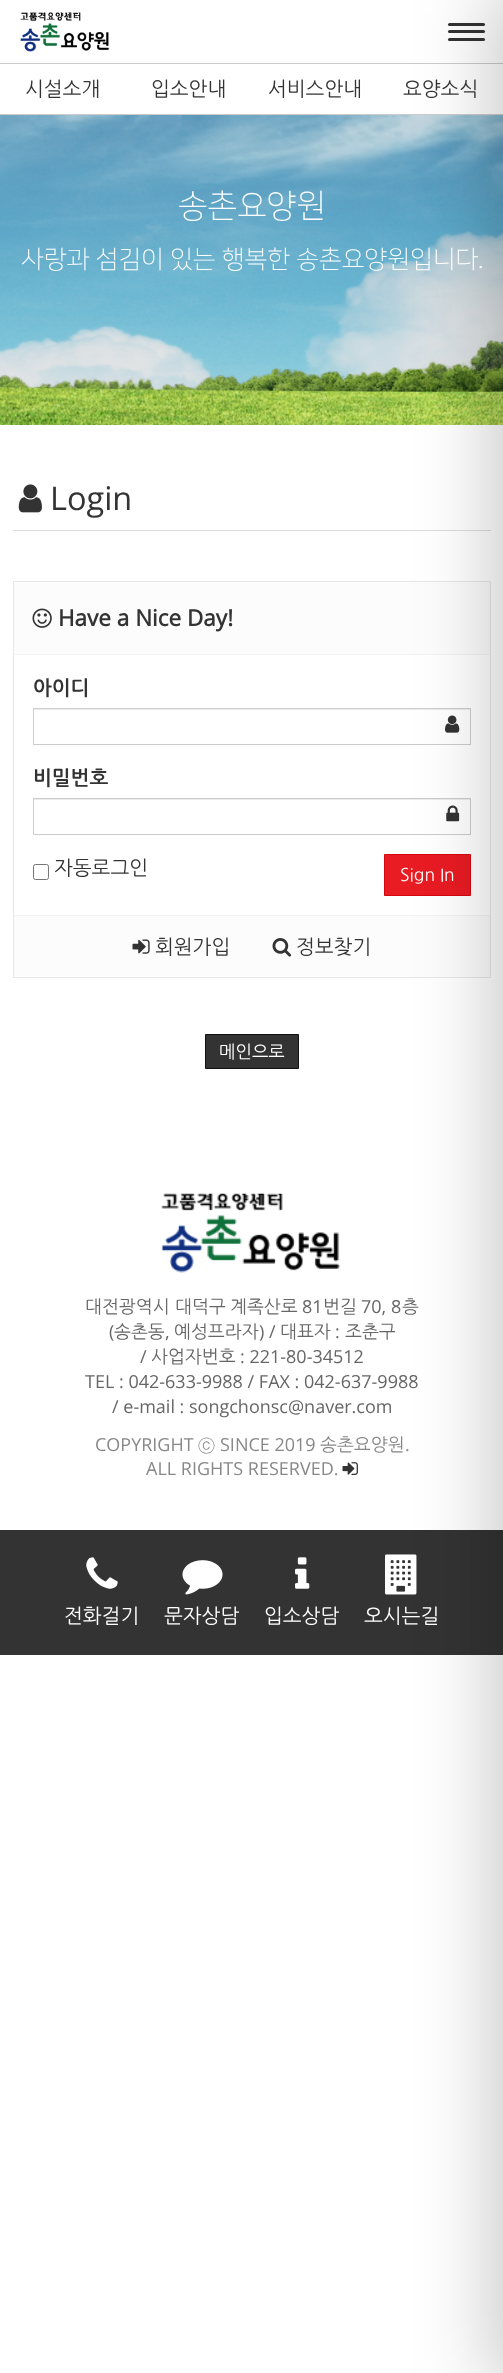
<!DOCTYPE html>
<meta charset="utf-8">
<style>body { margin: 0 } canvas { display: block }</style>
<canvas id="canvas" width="503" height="2373"></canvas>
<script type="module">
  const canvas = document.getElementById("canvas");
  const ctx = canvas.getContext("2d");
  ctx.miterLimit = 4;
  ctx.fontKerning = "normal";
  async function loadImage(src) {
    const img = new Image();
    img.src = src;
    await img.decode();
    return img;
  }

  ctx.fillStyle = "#ffffff";
  ctx.fillRect(0, 0, 503, 2373);
  ctx.fillStyle = "#333333";
  ctx.beginPath();
  ctx.roundRect(448, 23, 37, 3, 1.5);
  ctx.fill();
  ctx.beginPath();
  ctx.roundRect(448, 30, 37, 3, 1.5);
  ctx.fill();
  ctx.beginPath();
  ctx.roundRect(448, 38, 37, 3, 1.5);
  ctx.fill();
  ctx.fillStyle = "#cccccc";
  ctx.fillRect(0, 63, 503, 1);
  ctx.fillRect(0, 114, 503, 1);
  ctx.drawImage(await loadImage("img2.png"), 0, 115, 503, 310);
  ctx.fillStyle = "#dddddd";
  ctx.fillRect(13, 530, 478, 1);
  ctx.fillStyle = "#fcfcfc";
  ctx.beginPath();
  ctx.rect(13.5, 581.5, 477, 396);
  ctx.fill();
  ctx.strokeStyle = "#e7e7e7";
  ctx.stroke();
  ctx.fillStyle = "#f3f3f3";
  ctx.fillRect(14, 654, 476, 1);
  ctx.fillStyle = "#ffffff";
  ctx.fillRect(14, 655, 476, 260);
  ctx.fillStyle = "#ececec";
  ctx.fillRect(34, 709, 436, 1);
  ctx.strokeStyle = "#cccccc";
  ctx.strokeRect(33.5, 708.5, 437, 36);
  ctx.drawImage(await loadImage("img5.png"), 445, 715, 15, 18);
  ctx.fillRect(34, 799, 436, 1);
  ctx.strokeRect(33.5, 798.5, 437, 36);
  ctx.drawImage(await loadImage("img6.png"), 446, 805, 14, 17);
  ctx.fillStyle = "#e91b23";
  ctx.beginPath();
  ctx.rect(384.5, 854.5, 86, 41);
  ctx.fill();
  ctx.strokeStyle = "#d5070f";
  ctx.stroke();
  ctx.fillStyle = "#f3f3f3";
  ctx.fillRect(14, 915, 476, 1);
  ctx.fillStyle = "#333333";
  ctx.fillRect(0, 1530, 503, 125);
  ctx.drawImage(await loadImage("img14.png"), 385, 1554, 32, 41);
  ctx.fillStyle = "rgba(0, 0, 0, 0.21)";
  ctx.filter = "blur(37.5px)";
  ctx.beginPath();
  ctx.rect(491, -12, 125, 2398);
  ctx.fill();
  ctx.filter = "none";
  ctx.drawImage(await loadImage("img1.png"), 20, 12, 90, 40);
  ctx.font = "20px NanumGothic";
  ctx.fillStyle = "#333333";
  ctx.fillText("시설소개", 25, 96);
  ctx.fillText("입소안내", 151, 96);
  ctx.fillText("서비스안내", 268, 96);
  ctx.fillText("요양소식", 403, 96);
  ctx.font = "300 32.5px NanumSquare";
  ctx.fillStyle = "#ffffff";
  ctx.fillText("송촌요양원", 178, 216);
  ctx.font = "300 25px NanumSquare";
  ctx.fillText("사랑과 섬김이 있는 행복한 송촌요양원입니다.", 21, 267);
  ctx.drawImage(await loadImage("img3.png"), 18, 484, 24, 29);
  ctx.font = "32.5px Open Sans";
  ctx.fillStyle = "#333333";
  ctx.fillText("Login", 50, 510);
  ctx.drawImage(await loadImage("img4.png"), 32, 608, 20, 20);
  ctx.font = "bold 22.5px Open Sans";
  ctx.fillText("Have a Nice Day!", 58, 626);
  ctx.font = "bold 20px NanumGothic";
  ctx.fillText("아이디", 33, 695);
  ctx.fillText("비밀번호", 33, 785);
  ctx.beginPath();
  ctx.roundRect(33.5, 864.5, 15, 15, 2);
  ctx.strokeStyle = "#767676";
  ctx.stroke();
  ctx.font = "20px NanumGothic";
  ctx.fillText("자동로그인", 54, 875);
  ctx.font = "17.5px NanumGothic";
  ctx.fillStyle = "#ffffff";
  ctx.fillText("Sign In", 400, 881);
  ctx.drawImage(await loadImage("img7.png"), 132, 939, 18, 15);
  ctx.font = "20px NanumGothic";
  ctx.fillStyle = "#333333";
  ctx.fillText("회원가입", 155, 954);
  ctx.drawImage(await loadImage("img8.png"), 272, 938, 20, 19);
  ctx.fillText("정보찾기", 296, 954);
  ctx.beginPath();
  ctx.rect(205.5, 1034.5, 93, 34);
  ctx.fill();
  ctx.strokeStyle = "#111111";
  ctx.stroke();
  ctx.font = "17.5px NanumGothic";
  ctx.fillStyle = "#ffffff";
  ctx.fillText("메인으로", 219, 1058);
  ctx.drawImage(await loadImage("img9.png"), 161, 1193, 180, 80);
  ctx.font = "18px NanumGothic";
  ctx.fillStyle = "#666666";
  ctx.fillText("대전광역시", 85, 1313);
  ctx.fillText("대덕구", 175, 1313);
  ctx.fillText("계족산로", 230, 1313);
  ctx.font = "18px Open Sans";
  ctx.fillText("81", 302, 1313);
  ctx.font = "18px NanumGothic";
  ctx.fillText("번길", 323, 1313);
  ctx.font = "18px Open Sans";
  ctx.fillText("70, 8", 361, 1313);
  ctx.font = "18px NanumGothic";
  ctx.fillText("층", 402, 1313);
  ctx.font = "18px Open Sans";
  ctx.fillText("(", 109, 1338);
  ctx.font = "18px NanumGothic";
  ctx.fillText("송촌동", 114, 1338);
  ctx.font = "18px Open Sans";
  ctx.fillText(",", 165, 1338);
  ctx.font = "18px NanumGothic";
  ctx.fillText("예성프라자", 174, 1338);
  ctx.font = "18px Open Sans";
  ctx.fillText(") /", 259, 1338);
  ctx.font = "18px NanumGothic";
  ctx.fillText("대표자", 280, 1338);
  ctx.font = "18px Open Sans";
  ctx.fillText(":", 335, 1338);
  ctx.font = "18px NanumGothic";
  ctx.fillText("조춘구", 345, 1338);
  ctx.font = "18px Open Sans";
  ctx.fillText("/", 140, 1363);
  ctx.font = "18px NanumGothic";
  ctx.fillText("사업자번호", 151, 1363);
  ctx.font = "18px Open Sans";
  ctx.fillText(": 221-80-34512", 240, 1363);
  ctx.fillText("TEL : 042-633-9988 / FAX : 042-637-9988", 85, 1388);
  ctx.fillText("/ e-mail : songchonsc@naver.com", 112, 1413);
  ctx.fillStyle = "#888888";
  ctx.fillText("COPYRIGHT", 95, 1451);
  ctx.font = "18px 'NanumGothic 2'";
  ctx.fillText("ⓒ", 198, 1451);
  ctx.font = "18px Open Sans";
  ctx.fillText("SINCE 2019", 220, 1451);
  ctx.font = "18px NanumGothic";
  ctx.fillText("송촌요양원", 320, 1451);
  ctx.font = "18px Open Sans";
  ctx.fillText(".", 405, 1451);
  ctx.fillText("ALL RIGHTS RESERVED.", 146, 1475);
  ctx.drawImage(await loadImage("img10.png"), 342, 1462, 16, 13);
  ctx.drawImage(await loadImage("img11.png"), 86, 1557, 32, 32);
  ctx.font = "20px NanumGothic";
  ctx.fillStyle = "#ffffff";
  ctx.fillText("전화걸기", 64, 1623);
  ctx.drawImage(await loadImage("img12.png"), 182, 1560, 41, 35);
  ctx.fillText("문자상담", 164, 1623);
  ctx.drawImage(await loadImage("img13.png"), 295, 1557, 15, 32);
  ctx.fillText("입소상담", 264, 1623);
  ctx.fillText("오시는길", 364, 1623);
</script>
